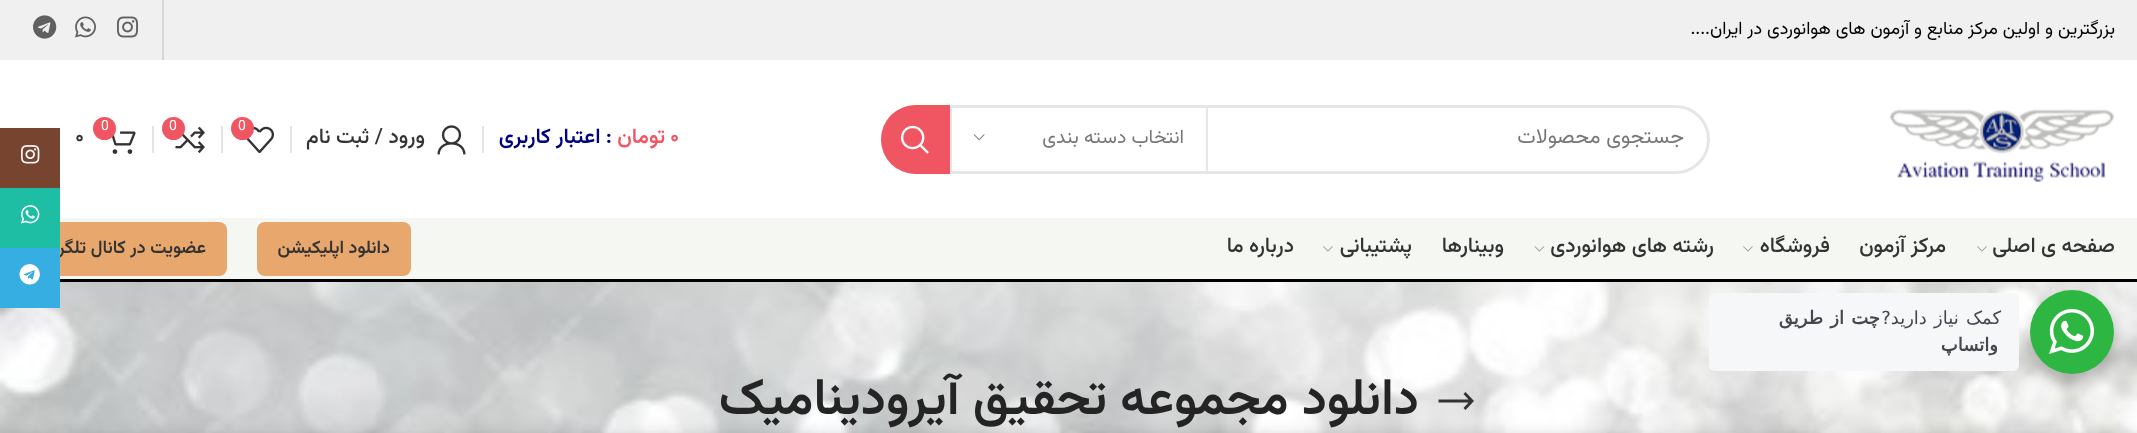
<!DOCTYPE html>
<meta charset="utf-8">
<style>body { margin: 0 } canvas { display: block }</style>
<canvas id="canvas" width="2137" height="433"></canvas>
<script type="module">
  const canvas = document.getElementById("canvas");
  const ctx = canvas.getContext("2d");
  ctx.miterLimit = 4;
  ctx.fontKerning = "normal";
  async function loadImage(src) {
    const img = new Image();
    img.src = src;
    await img.decode();
    return img;
  }

  ctx.fillStyle = "#ffffff";
  ctx.fillRect(0, 0, 2137, 433);
  ctx.fillStyle = "#f0f0f0";
  ctx.fillRect(0, 0, 2137, 60);
  ctx.direction = "rtl";
  ctx.font = "18px Vazirmatn";
  ctx.fillStyle = "#000000";
  ctx.fillText("بزرگترین و اولین مرکز منابع و آزمون های هوانوردی در ایران....", 2115, 34);
  ctx.fillStyle = "#d7d7d7";
  ctx.fillRect(162, 0, 2, 60);
  ctx.drawImage(await loadImage("img1.png"), 117, 16, 21, 22);
  ctx.drawImage(await loadImage("img2.png"), 75, 16, 21, 22);
  ctx.drawImage(await loadImage("img3.png"), 33, 15, 24, 24);
  ctx.fillStyle = "#f5f5f5";
  ctx.fillRect(60, 218, 2077, 1);
  ctx.drawImage(await loadImage("img4.png"), 1890, 109, 224, 73);
  ctx.beginPath();
  ctx.roundRect(882.5, 106.5, 826, 66, 33);
  ctx.strokeStyle = "#e6e6e6";
  ctx.lineWidth = 3;
  ctx.stroke();
  ctx.font = "21px Vazirmatn";
  ctx.fillStyle = "#777777";
  ctx.fillText("جستجوی محصولات", 1684, 143);
  ctx.fillStyle = "#e6e6e6";
  ctx.fillRect(1206, 108, 2, 63);
  ctx.fillRect(950, 108, 2, 63);
  ctx.font = "19.5px Vazirmatn";
  ctx.fillStyle = "#777777";
  ctx.fillText("انتخاب دسته بندی", 1184, 143);
  ctx.drawImage(await loadImage("img5.png"), 973, 134, 12, 7);
  ctx.fillStyle = "#ef5661";
  ctx.beginPath();
  ctx.roundRect(881, 105, 69, 69, [34.5, 0, 0, 34.5]);
  ctx.fill();
  ctx.drawImage(await loadImage("img6.png"), 900, 125, 29, 29);
  ctx.direction = "ltr";
  ctx.font = "600 21px Vazirmatn";
  ctx.fillText("۰", 670, 143);
  ctx.direction = "rtl";
  ctx.fillText("تومان", 665, 143);
  ctx.fillStyle = "#000080";
  ctx.fillText(": اعتبار کاربری", 612, 143);
  ctx.fillStyle = "#e4e4e4";
  ctx.fillRect(482, 126, 2, 27);
  ctx.drawImage(await loadImage("img7.png"), 437, 125, 29, 30);
  ctx.font = "500 21px Vazirmatn";
  ctx.fillStyle = "#333333";
  ctx.fillText("ورود / ثبت نام", 425, 143);
  ctx.fillStyle = "#e4e4e4";
  ctx.fillRect(290, 126, 2, 27);
  ctx.drawImage(await loadImage("img8.png"), 246, 126, 28, 27);
  ctx.fillStyle = "#ef5661";
  ctx.beginPath();
  ctx.arc(242.5, 128.5, 11.5, 0, Math.PI * 2);
  ctx.fill();
  ctx.direction = "ltr";
  ctx.font = "14px Vazirmatn";
  ctx.fillStyle = "#ffffff";
  ctx.fillText("0", 238, 130);
  ctx.fillStyle = "#e4e4e4";
  ctx.fillRect(221, 126, 2, 27);
  ctx.drawImage(await loadImage("img9.png"), 175, 126, 30, 27);
  ctx.fillStyle = "#ef5661";
  ctx.beginPath();
  ctx.arc(173.5, 128.5, 11.5, 0, Math.PI * 2);
  ctx.fill();
  ctx.fillStyle = "#ffffff";
  ctx.fillText("0", 169, 130);
  ctx.fillStyle = "#e4e4e4";
  ctx.fillRect(152, 126, 2, 27);
  ctx.drawImage(await loadImage("img10.png"), 112, 131, 24, 23);
  ctx.fillStyle = "#ef5661";
  ctx.beginPath();
  ctx.arc(104.5, 128.5, 11.5, 0, Math.PI * 2);
  ctx.fill();
  ctx.fillStyle = "#ffffff";
  ctx.fillText("0", 101, 130);
  ctx.font = "500 21px Vazirmatn";
  ctx.fillStyle = "#333333";
  ctx.fillText("۰", 75, 143);
  ctx.fillStyle = "#f5f7f3";
  ctx.fillRect(60, 219, 2077, 60);
  ctx.fillStyle = "#000000";
  ctx.fillRect(60, 279, 2077, 3);
  ctx.direction = "rtl";
  ctx.fillStyle = "#333333";
  ctx.fillText("صفحه ی اصلی", 2115, 252);
  ctx.drawImage(await loadImage("img11.png"), 1977, 246, 10, 6);
  ctx.fillText("مرکز آزمون", 1946, 252);
  ctx.fillText("فروشگاه", 1830, 252);
  ctx.drawImage(await loadImage("img11.png"), 1743, 246, 10, 6);
  ctx.fillText("رشته های هوانوردی", 1714, 252);
  ctx.drawImage(await loadImage("img12.png"), 1534, 246, 11, 6);
  ctx.fillText("وبینارها", 1504, 252);
  ctx.fillText("پشتیبانی", 1412, 252);
  ctx.drawImage(await loadImage("img11.png"), 1323, 246, 10, 6);
  ctx.fillText("درباره ما", 1294, 252);
  ctx.fillStyle = "#e8a76d";
  ctx.beginPath();
  ctx.roundRect(257, 222, 154, 54, 8);
  ctx.fill();
  ctx.font = "600 18px Vazirmatn";
  ctx.fillStyle = "#333333";
  ctx.fillText("دانلود اپلیکیشن", 390, 253);
  ctx.fillStyle = "#e8a76d";
  ctx.beginPath();
  ctx.roundRect(23, 222, 204, 54, 8);
  ctx.fill();
  ctx.fillStyle = "#333333";
  ctx.fillText("عضویت در کانال تلگرام", 206, 253);
  ctx.drawImage(await loadImage("img13.png"), 0, 282, 2137, 151);
  ctx.beginPath();
  ctx.moveTo(1474, 401);
  ctx.lineTo(1465.5, 392);
  ctx.lineTo(1463.5, 394);
  ctx.lineTo(1468.5, 399.5);
  ctx.lineTo(1438.5, 399.5);
  ctx.lineTo(1438.5, 402.5);
  ctx.lineTo(1468.5, 402.5);
  ctx.lineTo(1463.5, 408);
  ctx.lineTo(1465.5, 410);
  ctx.closePath();
  ctx.fill();
  ctx.font = "600 51px Vazirmatn";
  ctx.fillStyle = "#242424";
  ctx.fillText("دانلود مجموعه تحقیق آیرودینامیک", 1419, 414);
  ctx.fillStyle = "#774430";
  ctx.fillRect(0, 128, 60, 60);
  ctx.drawImage(await loadImage("img14.png"), 21, 145, 19, 19);
  ctx.fillStyle = "#1ebea5";
  ctx.fillRect(0, 188, 60, 60);
  ctx.drawImage(await loadImage("img15.png"), 21, 205, 19, 19);
  ctx.fillStyle = "#37aee2";
  ctx.fillRect(0, 248, 60, 60);
  ctx.drawImage(await loadImage("img16.png"), 19, 264, 21, 21);
  ctx.fillStyle = "rgba(0, 0, 0, 0.14)";
  ctx.filter = "blur(6px)";
  ctx.beginPath();
  ctx.roundRect(2027, 296, 90, 90, 45);
  ctx.fill();
  ctx.filter = "none";
  ctx.fillStyle = "#2db742";
  ctx.beginPath();
  ctx.arc(2072, 332, 42, 0, Math.PI * 2);
  ctx.fill();
  ctx.drawImage(await loadImage("img17.png"), 2049, 309, 45, 45);
  ctx.fillStyle = "#f5f7f9";
  ctx.beginPath();
  ctx.roundRect(1709, 293, 310, 78, 6);
  ctx.fill();
  ctx.letterSpacing = "-0.5px";
  ctx.wordSpacing = "2px";
  ctx.font = "18px DejaVu Sans";
  ctx.fillStyle = "#43474e";
  ctx.fillText("کمک نیاز دارید?", 2001, 324);
  ctx.font = "bold 18px DejaVu Sans";
  ctx.fillText("چت از طریق", 1880, 324);
  ctx.wordSpacing = "0px";
  ctx.fillText("واتساپ", 1998, 351);
  ctx.fillStyle = "rgba(0, 0, 0, 0.14)";
  ctx.filter = "blur(7px)";
  ctx.beginPath();
  ctx.rect(0, 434, 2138, 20);
  ctx.fill();
  ctx.filter = "none";
</script>
